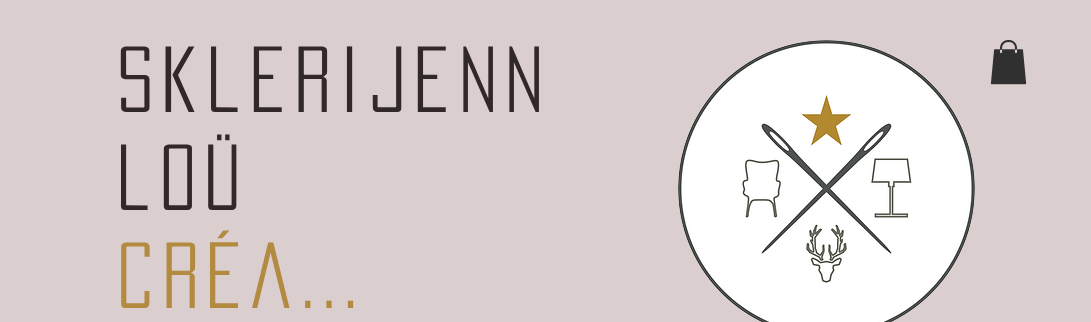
<!DOCTYPE html>
<meta charset="utf-8">
<style>body { margin: 0 } canvas { display: block }</style>
<canvas id="canvas" width="1091" height="322"></canvas>
<script type="module">
  const canvas = document.getElementById("canvas");
  const ctx = canvas.getContext("2d");
  ctx.miterLimit = 4;
  ctx.fontKerning = "normal";
  async function loadImage(src) {
    const img = new Image();
    img.src = src;
    await img.decode();
    return img;
  }

  ctx.fillStyle = "#dbcecf";
  ctx.fillRect(0, 0, 1091, 322);
  ctx.letterSpacing = "8.25px";
  ctx.font = "82px 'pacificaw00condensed'";
  ctx.fillStyle = "#312829";
  ctx.fillText("sklerijenn", 117, 112);
  ctx.fillText("loÜ", 117, 210);
  ctx.fillStyle = "#b38b40";
  ctx.fillText("créa...", 117, 308);
  ctx.drawImage(await loadImage("img1.png"), 678, 40, 297, 282);
  ctx.drawImage(await loadImage("img2.png"), 990, 40, 37, 45);
</script>
